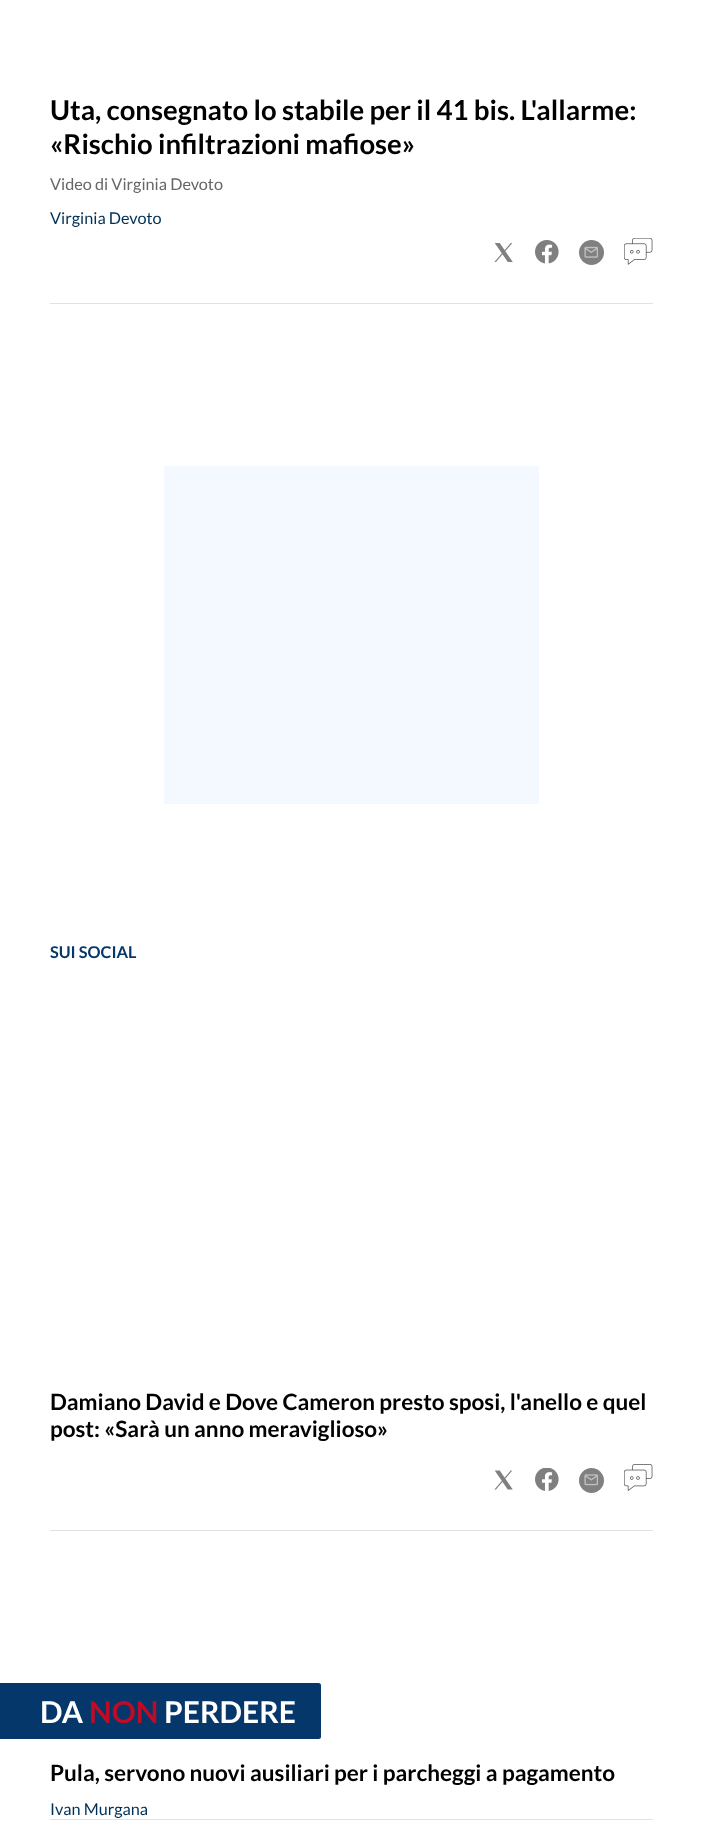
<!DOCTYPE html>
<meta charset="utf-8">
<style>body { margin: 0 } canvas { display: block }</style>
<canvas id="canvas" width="702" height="1833"></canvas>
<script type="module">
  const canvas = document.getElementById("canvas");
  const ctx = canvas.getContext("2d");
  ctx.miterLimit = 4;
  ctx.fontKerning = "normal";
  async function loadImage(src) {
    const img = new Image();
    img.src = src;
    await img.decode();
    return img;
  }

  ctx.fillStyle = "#ffffff";
  ctx.fillRect(0, 0, 702, 1833);
  ctx.fillStyle = "#e2e2e2";
  ctx.fillRect(50, 303, 603, 1);
  ctx.font = "bold 27.5px Lato";
  ctx.fillStyle = "#000000";
  ctx.fillText("Uta, consegnato lo stabile per il 41 bis. L'allarme:", 50, 120);
  ctx.fillText("«Rischio infiltrazioni mafiose»", 50, 154);
  ctx.font = "16.25px Lato";
  ctx.fillStyle = "#666666";
  ctx.fillText("Video di Virginia Devoto", 50, 190);
  ctx.fillStyle = "#003055";
  ctx.fillText("Virginia Devoto", 50, 224);
  ctx.drawImage(await loadImage("img1.png"), 494, 243, 19, 19);
  ctx.drawImage(await loadImage("img2.png"), 535, 240, 24, 24);
  ctx.fillStyle = "#808080";
  ctx.beginPath();
  ctx.arc(591.5, 252.5, 12.5, 0, Math.PI * 2);
  ctx.fill();
  ctx.drawImage(await loadImage("img3.png"), 584, 246, 14, 12);
  ctx.drawImage(await loadImage("img4.png"), 624, 238, 29, 27);
  ctx.fillStyle = "#f4f9ff";
  ctx.fillRect(164, 466, 375, 338);
  ctx.fillStyle = "#e2e2e2";
  ctx.fillRect(50, 1530, 603, 1);
  ctx.font = "bold 16.25px Lato";
  ctx.fillStyle = "#06376b";
  ctx.fillText("SUI SOCIAL", 50, 958);
  ctx.font = "bold 22.5px Lato";
  ctx.fillStyle = "#000000";
  ctx.fillText("Damiano David e Dove Cameron presto sposi, l'anello e quel", 50, 1410);
  ctx.fillText("post: «Sarà un anno meraviglioso»", 50, 1437);
  ctx.drawImage(await loadImage("img5.png"), 494, 1470, 19, 20);
  ctx.drawImage(await loadImage("img6.png"), 535, 1468, 24, 23);
  ctx.fillStyle = "#808080";
  ctx.beginPath();
  ctx.arc(591.5, 1480.5, 12.5, 0, Math.PI * 2);
  ctx.fill();
  ctx.drawImage(await loadImage("img7.png"), 584, 1474, 14, 12);
  ctx.drawImage(await loadImage("img8.png"), 624, 1464, 29, 27);
  ctx.fillStyle = "#06376b";
  ctx.beginPath();
  ctx.roundRect(25, 1683, 296, 56, [0, 2.5, 2.5, 0]);
  ctx.fill();
  ctx.fillRect(0, 1683, 25, 56);
  ctx.font = "bold 30px Lato";
  ctx.fillStyle = "#ffffff";
  ctx.fillText("DA", 40, 1723);
  ctx.fillStyle = "#be0b26";
  ctx.fillText("NON", 89, 1723);
  ctx.fillStyle = "#ffffff";
  ctx.fillText("PERDERE", 164, 1723);
  ctx.fillStyle = "#e2e2e2";
  ctx.fillRect(50, 1819, 603, 1);
  ctx.font = "bold 22.5px Lato";
  ctx.fillStyle = "#000000";
  ctx.fillText("Pula, servono nuovi ausiliari per i parcheggi a pagamento", 50, 1781);
  ctx.font = "16.25px Lato";
  ctx.fillStyle = "#003055";
  ctx.fillText("Ivan Murgana", 50, 1815);
</script>
